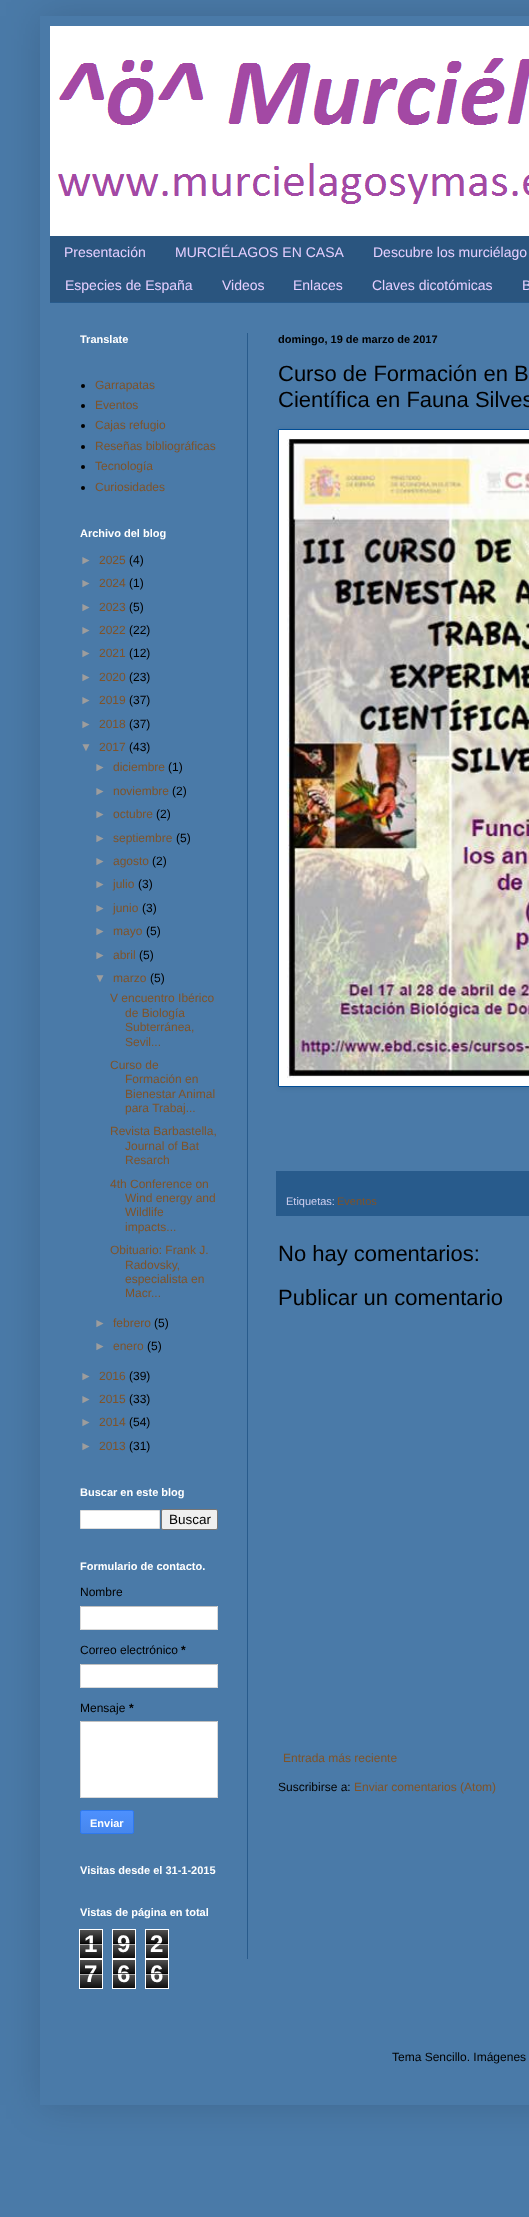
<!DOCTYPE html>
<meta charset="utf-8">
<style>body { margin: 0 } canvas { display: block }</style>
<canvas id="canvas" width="529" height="2217"></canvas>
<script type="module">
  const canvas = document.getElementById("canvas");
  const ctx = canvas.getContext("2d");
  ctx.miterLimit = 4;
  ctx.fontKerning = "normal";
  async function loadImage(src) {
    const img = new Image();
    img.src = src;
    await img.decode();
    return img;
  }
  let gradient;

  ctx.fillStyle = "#4a7aa8";
  ctx.fillRect(0, 0, 529, 2217);
  ctx.save();
  ctx.beginPath();
  ctx.moveTo(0, 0);
  ctx.lineTo(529, 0);
  ctx.lineTo(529, 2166);
  ctx.lineTo(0, 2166);
  ctx.closePath();
  ctx.moveTo(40, 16);
  ctx.lineTo(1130, 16);
  ctx.lineTo(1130, 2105);
  ctx.lineTo(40, 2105);
  ctx.closePath();
  ctx.clip("evenodd");
  ctx.fillStyle = "rgba(0, 0, 0, 0.15)";
  ctx.filter = "blur(20px)";
  ctx.beginPath();
  ctx.rect(40, 16, 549, 2089);
  ctx.fill();
  ctx.filter = "none";
  ctx.restore();
  ctx.drawImage(await loadImage("img1.png"), 50, 26, 479, 210);
  ctx.fillStyle = "#2a557f";
  ctx.fillRect(50, 236, 479, 66);
  ctx.fillStyle = "#285b8c";
  ctx.fillRect(50, 302, 479, 1);
  ctx.font = "14px Liberation Sans";
  ctx.fillStyle = "#e6cfff";
  ctx.fillText("Presentación", 64, 257);
  ctx.fillText("MURCIÉLAGOS EN CASA", 175, 257);
  ctx.fillText("Descubre los murciélago", 373, 257);
  ctx.fillText("Especies de España", 65, 290);
  ctx.fillText("Videos", 222, 290);
  ctx.fillText("Enlaces", 293, 290);
  ctx.fillText("Claves dicotómicas", 372, 290);
  ctx.fillText("B", 522, 290);
  ctx.fillStyle = "#285b8c";
  ctx.fillRect(247, 333, 1, 1626);
  ctx.font = "bold 11px Liberation Sans";
  ctx.fillStyle = "#ffffff";
  ctx.fillText("Translate", 80, 343);
  ctx.fillStyle = "#000000";
  ctx.beginPath();
  ctx.arc(83, 386, 2, 0, Math.PI * 2);
  ctx.fill();
  ctx.font = "12px Liberation Sans";
  ctx.fillStyle = "#7f5329";
  ctx.fillText("Garrapatas", 95, 389);
  ctx.fillStyle = "#000000";
  ctx.beginPath();
  ctx.arc(83, 406, 2, 0, Math.PI * 2);
  ctx.fill();
  ctx.fillStyle = "#7f5329";
  ctx.fillText("Eventos", 95, 409);
  ctx.fillStyle = "#000000";
  ctx.beginPath();
  ctx.arc(83, 426, 2, 0, Math.PI * 2);
  ctx.fill();
  ctx.fillStyle = "#7f5329";
  ctx.fillText("Cajas refugio", 95, 429);
  ctx.fillStyle = "#000000";
  ctx.beginPath();
  ctx.arc(83, 447, 2, 0, Math.PI * 2);
  ctx.fill();
  ctx.fillStyle = "#7f5329";
  ctx.fillText("Reseñas bibliográficas", 95, 450);
  ctx.fillStyle = "#000000";
  ctx.beginPath();
  ctx.arc(83, 467, 2, 0, Math.PI * 2);
  ctx.fill();
  ctx.fillStyle = "#7f5329";
  ctx.fillText("Tecnología", 95, 470);
  ctx.fillStyle = "#000000";
  ctx.beginPath();
  ctx.arc(83, 488, 2, 0, Math.PI * 2);
  ctx.fill();
  ctx.fillStyle = "#7f5329";
  ctx.fillText("Curiosidades", 95, 491);
  ctx.font = "bold 11px Liberation Sans";
  ctx.fillStyle = "#ffffff";
  ctx.fillText("Archivo del blog", 80, 537);
  ctx.font = "12px Liberation Sans";
  ctx.fillStyle = "#9d9d9d";
  ctx.fillText("►", 80, 564);
  ctx.fillStyle = "#7f5329";
  ctx.fillText("2025", 99, 564);
  ctx.fillStyle = "#000000";
  ctx.fillText("(4)", 129, 564);
  ctx.fillStyle = "#9d9d9d";
  ctx.fillText("►", 80, 587);
  ctx.fillStyle = "#7f5329";
  ctx.fillText("2024", 99, 587);
  ctx.fillStyle = "#000000";
  ctx.fillText("(1)", 129, 587);
  ctx.fillStyle = "#9d9d9d";
  ctx.fillText("►", 80, 611);
  ctx.fillStyle = "#7f5329";
  ctx.fillText("2023", 99, 611);
  ctx.fillStyle = "#000000";
  ctx.fillText("(5)", 129, 611);
  ctx.fillStyle = "#9d9d9d";
  ctx.fillText("►", 80, 634);
  ctx.fillStyle = "#7f5329";
  ctx.fillText("2022", 99, 634);
  ctx.fillStyle = "#000000";
  ctx.fillText("(22)", 129, 634);
  ctx.fillStyle = "#9d9d9d";
  ctx.fillText("►", 80, 657);
  ctx.fillStyle = "#7f5329";
  ctx.fillText("2021", 99, 657);
  ctx.fillStyle = "#000000";
  ctx.fillText("(12)", 129, 657);
  ctx.fillStyle = "#9d9d9d";
  ctx.fillText("►", 80, 681);
  ctx.fillStyle = "#7f5329";
  ctx.fillText("2020", 99, 681);
  ctx.fillStyle = "#000000";
  ctx.fillText("(23)", 129, 681);
  ctx.fillStyle = "#9d9d9d";
  ctx.fillText("►", 80, 704);
  ctx.fillStyle = "#7f5329";
  ctx.fillText("2019", 99, 704);
  ctx.fillStyle = "#000000";
  ctx.fillText("(37)", 129, 704);
  ctx.fillStyle = "#9d9d9d";
  ctx.fillText("►", 80, 728);
  ctx.fillStyle = "#7f5329";
  ctx.fillText("2018", 99, 728);
  ctx.fillStyle = "#000000";
  ctx.fillText("(37)", 129, 728);
  ctx.fillStyle = "#9d9d9d";
  ctx.fillText("▼", 80, 751);
  ctx.fillStyle = "#7f5329";
  ctx.fillText("2017", 99, 751);
  ctx.fillStyle = "#000000";
  ctx.fillText("(43)", 129, 751);
  ctx.fillStyle = "#9d9d9d";
  ctx.fillText("►", 94, 771);
  ctx.fillStyle = "#7f5329";
  ctx.fillText("diciembre", 113, 771);
  ctx.fillStyle = "#000000";
  ctx.fillText("(1)", 168, 771);
  ctx.fillStyle = "#9d9d9d";
  ctx.fillText("►", 94, 795);
  ctx.fillStyle = "#7f5329";
  ctx.fillText("noviembre", 113, 795);
  ctx.fillStyle = "#000000";
  ctx.fillText("(2)", 172, 795);
  ctx.fillStyle = "#9d9d9d";
  ctx.fillText("►", 94, 818);
  ctx.fillStyle = "#7f5329";
  ctx.fillText("octubre", 113, 818);
  ctx.fillStyle = "#000000";
  ctx.fillText("(2)", 156, 818);
  ctx.fillStyle = "#9d9d9d";
  ctx.fillText("►", 94, 842);
  ctx.fillStyle = "#7f5329";
  ctx.fillText("septiembre", 113, 842);
  ctx.fillStyle = "#000000";
  ctx.fillText("(5)", 176, 842);
  ctx.fillStyle = "#9d9d9d";
  ctx.fillText("►", 94, 865);
  ctx.fillStyle = "#7f5329";
  ctx.fillText("agosto", 113, 865);
  ctx.fillStyle = "#000000";
  ctx.fillText("(2)", 152, 865);
  ctx.fillStyle = "#9d9d9d";
  ctx.fillText("►", 94, 888);
  ctx.fillStyle = "#7f5329";
  ctx.fillText("julio", 113, 888);
  ctx.fillStyle = "#000000";
  ctx.fillText("(3)", 138, 888);
  ctx.fillStyle = "#9d9d9d";
  ctx.fillText("►", 94, 912);
  ctx.fillStyle = "#7f5329";
  ctx.fillText("junio", 113, 912);
  ctx.fillStyle = "#000000";
  ctx.fillText("(3)", 142, 912);
  ctx.fillStyle = "#9d9d9d";
  ctx.fillText("►", 94, 935);
  ctx.fillStyle = "#7f5329";
  ctx.fillText("mayo", 113, 935);
  ctx.fillStyle = "#000000";
  ctx.fillText("(5)", 146, 935);
  ctx.fillStyle = "#9d9d9d";
  ctx.fillText("►", 94, 959);
  ctx.fillStyle = "#7f5329";
  ctx.fillText("abril", 113, 959);
  ctx.fillStyle = "#000000";
  ctx.fillText("(5)", 139, 959);
  ctx.fillStyle = "#9d9d9d";
  ctx.fillText("▼", 94, 982);
  ctx.fillStyle = "#7f5329";
  ctx.fillText("marzo", 113, 982);
  ctx.fillStyle = "#000000";
  ctx.fillText("(5)", 150, 982);
  ctx.fillStyle = "#7f5329";
  ctx.fillText("V encuentro Ibérico", 110, 1002);
  ctx.fillText("de Biología", 125, 1017);
  ctx.fillText("Subterránea,", 125, 1031);
  ctx.fillText("Sevil...", 125, 1046);
  ctx.fillText("Curso de", 110, 1069);
  ctx.fillText("Formación en", 125, 1083);
  ctx.fillText("Bienestar Animal", 125, 1098);
  ctx.fillText("para Trabaj...", 125, 1112);
  ctx.fillText("Revista Barbastella,", 110, 1135);
  ctx.fillText("Journal of Bat", 125, 1150);
  ctx.fillText("Resarch", 125, 1164);
  ctx.fillText("4th Conference on", 110, 1188);
  ctx.fillText("Wind energy and", 125, 1202);
  ctx.fillText("Wildlife", 125, 1216);
  ctx.fillText("impacts...", 125, 1231);
  ctx.fillText("Obituario: Frank J.", 110, 1254);
  ctx.fillText("Radovsky,", 125, 1269);
  ctx.fillText("especialista en", 125, 1283);
  ctx.fillText("Macr...", 125, 1297);
  ctx.fillStyle = "#9d9d9d";
  ctx.fillText("►", 94, 1327);
  ctx.fillStyle = "#7f5329";
  ctx.fillText("febrero", 113, 1327);
  ctx.fillStyle = "#000000";
  ctx.fillText("(5)", 154, 1327);
  ctx.fillStyle = "#9d9d9d";
  ctx.fillText("►", 94, 1350);
  ctx.fillStyle = "#7f5329";
  ctx.fillText("enero", 113, 1350);
  ctx.fillStyle = "#000000";
  ctx.fillText("(5)", 147, 1350);
  ctx.fillStyle = "#9d9d9d";
  ctx.fillText("►", 80, 1380);
  ctx.fillStyle = "#7f5329";
  ctx.fillText("2016", 99, 1380);
  ctx.fillStyle = "#000000";
  ctx.fillText("(39)", 129, 1380);
  ctx.fillStyle = "#9d9d9d";
  ctx.fillText("►", 80, 1403);
  ctx.fillStyle = "#7f5329";
  ctx.fillText("2015", 99, 1403);
  ctx.fillStyle = "#000000";
  ctx.fillText("(33)", 129, 1403);
  ctx.fillStyle = "#9d9d9d";
  ctx.fillText("►", 80, 1426);
  ctx.fillStyle = "#7f5329";
  ctx.fillText("2014", 99, 1426);
  ctx.fillStyle = "#000000";
  ctx.fillText("(54)", 129, 1426);
  ctx.fillStyle = "#9d9d9d";
  ctx.fillText("►", 80, 1450);
  ctx.fillStyle = "#7f5329";
  ctx.fillText("2013", 99, 1450);
  ctx.fillStyle = "#000000";
  ctx.fillText("(31)", 129, 1450);
  ctx.font = "bold 11px Liberation Sans";
  ctx.fillStyle = "#ffffff";
  ctx.fillText("Buscar en este blog", 80, 1496);
  ctx.beginPath();
  ctx.rect(80.5, 1510.5, 79, 18);
  ctx.fill();
  ctx.strokeStyle = "#dddddd";
  ctx.stroke();
  ctx.fillStyle = "#efefef";
  ctx.beginPath();
  ctx.roundRect(161.5, 1509.5, 56, 20, 1.5);
  ctx.fill();
  ctx.strokeStyle = "#767676";
  ctx.stroke();
  ctx.font = "13.5px Liberation Sans";
  ctx.fillStyle = "#000000";
  ctx.fillText("Buscar", 169, 1524);
  ctx.font = "bold 11px Liberation Sans";
  ctx.fillStyle = "#ffffff";
  ctx.fillText("Formulario de contacto.", 80, 1570);
  ctx.font = "12px Liberation Sans";
  ctx.fillStyle = "#000000";
  ctx.fillText("Nombre", 80, 1596);
  ctx.fillStyle = "#ffffff";
  ctx.fillRect(81, 1607, 136, 22);
  ctx.fillStyle = "#c0c0c0";
  ctx.fillRect(80, 1606, 138, 1);
  ctx.fillStyle = "#d9d9d9";
  ctx.fillRect(217, 1606, 1, 24);
  ctx.fillRect(80, 1629, 138, 1);
  ctx.fillRect(80, 1606, 1, 24);
  ctx.fillStyle = "#000000";
  ctx.fillText("Correo electrónico", 80, 1654);
  ctx.font = "bold 12px Liberation Sans";
  ctx.fillText("*", 181, 1654);
  ctx.fillStyle = "#ffffff";
  ctx.fillRect(81, 1665, 136, 22);
  ctx.fillStyle = "#c0c0c0";
  ctx.fillRect(80, 1664, 138, 1);
  ctx.fillStyle = "#d9d9d9";
  ctx.fillRect(217, 1664, 1, 24);
  ctx.fillRect(80, 1687, 138, 1);
  ctx.fillRect(80, 1664, 1, 24);
  ctx.font = "12px Liberation Sans";
  ctx.fillStyle = "#000000";
  ctx.fillText("Mensaje", 80, 1712);
  ctx.font = "bold 12px Liberation Sans";
  ctx.fillText("*", 129, 1712);
  ctx.fillStyle = "#ffffff";
  ctx.fillRect(81, 1722, 136, 75);
  ctx.fillStyle = "#c0c0c0";
  ctx.fillRect(80, 1721, 138, 1);
  ctx.fillStyle = "#d9d9d9";
  ctx.fillRect(217, 1721, 1, 77);
  ctx.fillRect(80, 1797, 138, 1);
  ctx.fillRect(80, 1721, 1, 77);
  ctx.save();
  ctx.beginPath();
  ctx.roundRect(80, 1810, 54, 24, 2);
  ctx.clip();
  gradient = ctx.createLinearGradient(107, 1811, 107, 1833);
  gradient.addColorStop(0, "#4d90fe");
  gradient.addColorStop(1, "#4787ed");
  ctx.fillStyle = gradient;
  ctx.fillRect(80, 1811, 54, 22);
  ctx.restore();
  ctx.beginPath();
  ctx.roundRect(80.5, 1810.5, 53, 23, 1.5);
  ctx.strokeStyle = "#3079ed";
  ctx.stroke();
  ctx.font = "bold 11px Liberation Sans";
  ctx.fillStyle = "#ffffff";
  ctx.fillText("Enviar", 90, 1827);
  ctx.fillText("Visitas desde el 31-1-2015", 80, 1874);
  ctx.fillText("Vistas de página en total", 80, 1916);
  ctx.drawImage(await loadImage("img2.png"), 80, 1930, 22, 28);
  ctx.strokeStyle = "#ffffff";
  ctx.strokeRect(79.5, 1929.5, 23, 29);
  ctx.font = "bold 24px Liberation Sans";
  ctx.fillText("1", 84, 1952);
  ctx.fillStyle = "rgba(0, 0, 0, 0.65)";
  ctx.fillRect(80, 1943, 22, 1);
  ctx.fillStyle = "rgba(255, 255, 255, 0.65)";
  ctx.fillRect(80, 1944, 22, 1);
  ctx.drawImage(await loadImage("img2.png"), 113, 1930, 22, 28);
  ctx.strokeRect(112.5, 1929.5, 23, 29);
  ctx.fillStyle = "#ffffff";
  ctx.fillText("9", 117, 1952);
  ctx.fillStyle = "rgba(0, 0, 0, 0.65)";
  ctx.fillRect(113, 1943, 22, 1);
  ctx.fillStyle = "rgba(255, 255, 255, 0.65)";
  ctx.fillRect(113, 1944, 22, 1);
  ctx.drawImage(await loadImage("img2.png"), 146, 1930, 22, 28);
  ctx.strokeRect(145.5, 1929.5, 23, 29);
  ctx.fillStyle = "#ffffff";
  ctx.fillText("2", 150, 1952);
  ctx.fillStyle = "rgba(0, 0, 0, 0.65)";
  ctx.fillRect(146, 1943, 22, 1);
  ctx.fillStyle = "rgba(255, 255, 255, 0.65)";
  ctx.fillRect(146, 1944, 22, 1);
  ctx.drawImage(await loadImage("img2.png"), 80, 1960, 22, 28);
  ctx.strokeRect(79.5, 1959.5, 23, 29);
  ctx.fillStyle = "#ffffff";
  ctx.fillText("7", 84, 1982);
  ctx.fillStyle = "rgba(0, 0, 0, 0.65)";
  ctx.fillRect(80, 1973, 22, 1);
  ctx.fillStyle = "rgba(255, 255, 255, 0.65)";
  ctx.fillRect(80, 1974, 22, 1);
  ctx.drawImage(await loadImage("img2.png"), 113, 1960, 22, 28);
  ctx.strokeRect(112.5, 1959.5, 23, 29);
  ctx.fillStyle = "#ffffff";
  ctx.fillText("6", 117, 1982);
  ctx.fillStyle = "rgba(0, 0, 0, 0.65)";
  ctx.fillRect(113, 1973, 22, 1);
  ctx.fillStyle = "rgba(255, 255, 255, 0.65)";
  ctx.fillRect(113, 1974, 22, 1);
  ctx.drawImage(await loadImage("img2.png"), 146, 1960, 22, 28);
  ctx.strokeRect(145.5, 1959.5, 23, 29);
  ctx.fillStyle = "#ffffff";
  ctx.fillText("6", 150, 1982);
  ctx.fillStyle = "rgba(0, 0, 0, 0.65)";
  ctx.fillRect(146, 1973, 22, 1);
  ctx.fillStyle = "rgba(255, 255, 255, 0.65)";
  ctx.fillRect(146, 1974, 22, 1);
  ctx.font = "bold 11px Liberation Sans";
  ctx.fillStyle = "#000000";
  ctx.fillText("domingo, 19 de marzo de 2017", 278, 343);
  ctx.font = "22px Liberation Sans";
  ctx.fillText("Curso de Formación en B", 278, 381);
  ctx.fillText("Científica en Fauna Silves", 278, 407);
  ctx.fillStyle = "rgba(0, 0, 0, 0.1)";
  ctx.filter = "blur(2.5px)";
  ctx.beginPath();
  ctx.rect(279, 430, 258, 658);
  ctx.fill();
  ctx.filter = "none";
  ctx.fillStyle = "#ffffff";
  ctx.beginPath();
  ctx.rect(278.5, 429.5, 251, 657);
  ctx.fill();
  ctx.strokeStyle = "#004d96";
  ctx.stroke();
  ctx.drawImage(await loadImage("img3.png"), 287, 438, 242, 640);
  ctx.fillStyle = "#285b8c";
  ctx.fillRect(276, 1171, 253, 45);
  ctx.font = "11px Liberation Sans";
  ctx.fillStyle = "#cfcfef";
  ctx.fillText("Etiquetas:", 286, 1205);
  ctx.fillStyle = "#7f5329";
  ctx.fillText("Eventos", 337, 1205);
  ctx.font = "22px Liberation Sans";
  ctx.fillStyle = "#000000";
  ctx.fillText("No hay comentarios:", 278, 1261);
  ctx.fillText("Publicar un comentario", 278, 1305);
  ctx.font = "12px Liberation Sans";
  ctx.fillStyle = "#7f5329";
  ctx.fillText("Entrada más reciente", 283, 1762);
  ctx.fillStyle = "#000000";
  ctx.fillText("Suscribirse a:", 278, 1791);
  ctx.fillStyle = "#7f5329";
  ctx.fillText("Enviar comentarios (Atom)", 354, 1791);
  ctx.fillStyle = "#000000";
  ctx.fillText("Tema Sencillo. Imágenes", 392, 2061);
</script>
